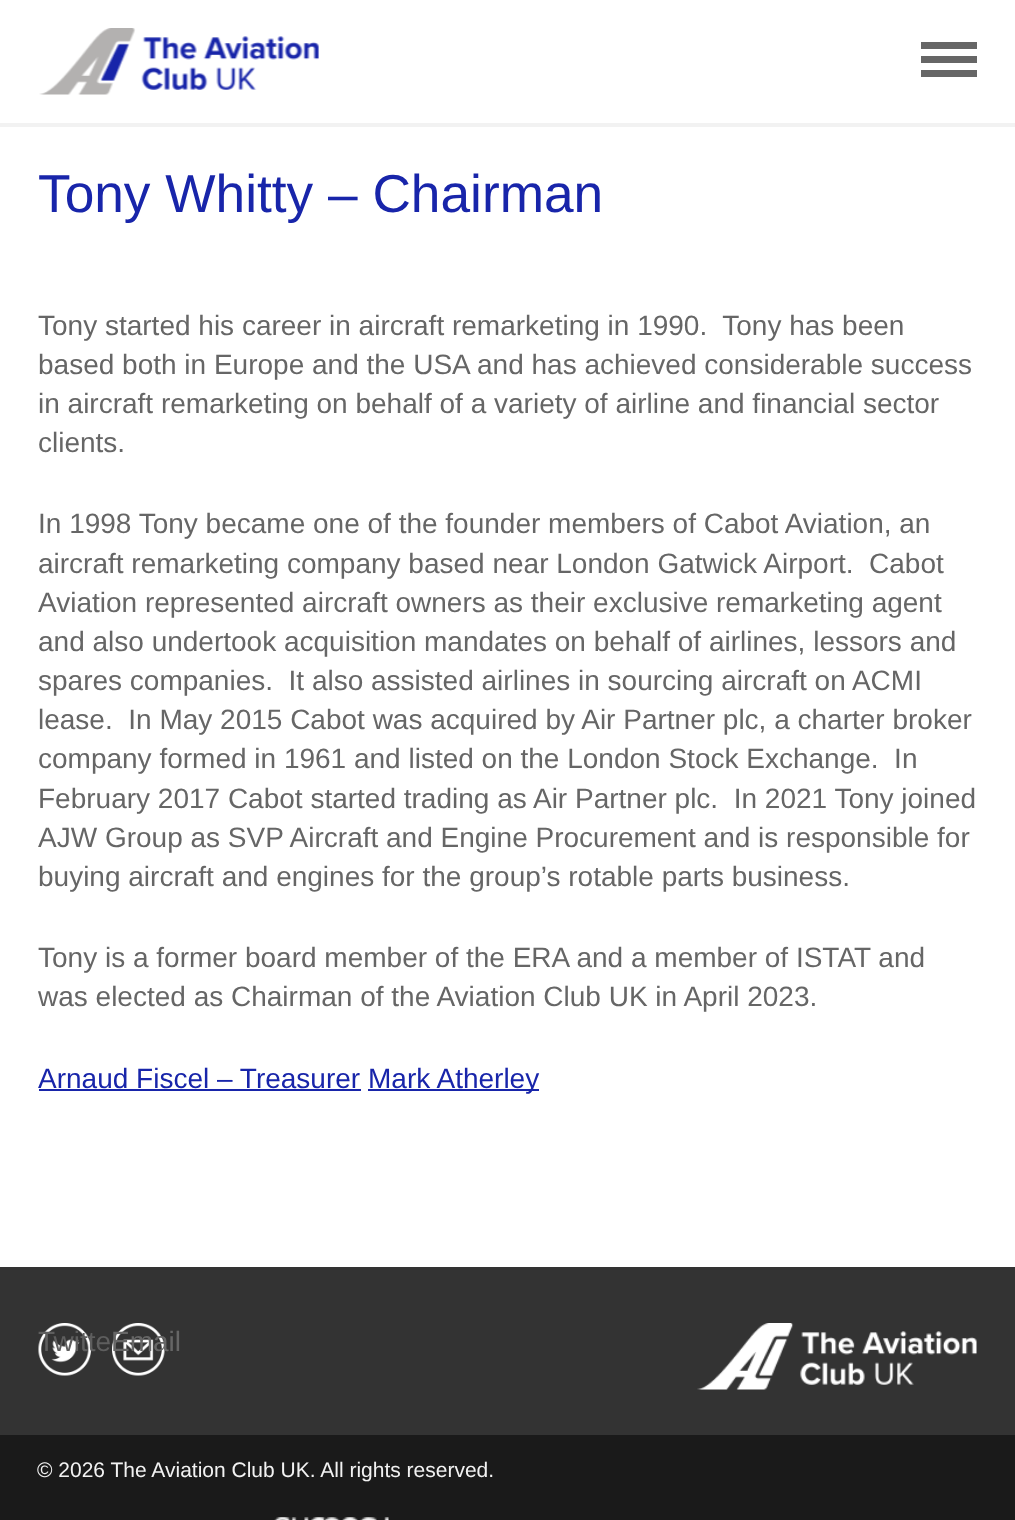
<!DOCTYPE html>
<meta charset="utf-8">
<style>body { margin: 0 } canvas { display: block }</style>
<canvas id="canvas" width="1015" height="1520"></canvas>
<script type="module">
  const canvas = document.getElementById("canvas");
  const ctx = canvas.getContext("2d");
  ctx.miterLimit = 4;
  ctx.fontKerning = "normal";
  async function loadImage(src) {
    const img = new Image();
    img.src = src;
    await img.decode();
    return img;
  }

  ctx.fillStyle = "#ffffff";
  ctx.fillRect(0, 0, 1015, 1520);
  ctx.fillStyle = "#f2f2f2";
  ctx.fillRect(0, 123, 1015, 4);
  ctx.drawImage(await loadImage("img1.png"), 39, 28, 280, 67);
  ctx.fillStyle = "#666666";
  ctx.fillRect(921, 42, 56, 7);
  ctx.fillRect(921, 56, 56, 7);
  ctx.fillRect(921, 70, 56, 7);
  ctx.font = "53.25px Liberation Sans";
  ctx.fillStyle = "#1825aa";
  ctx.fillText("Tony Whitty – Chairman", 38, 212);
  ctx.font = "28px Liberation Sans";
  ctx.fillStyle = "#666666";
  ctx.fillText("Tony started his career in aircraft remarketing in 1990.  Tony has been", 38, 335);
  ctx.fillText("based both in Europe and the USA and has achieved considerable success", 38, 374);
  ctx.fillText("in aircraft remarketing on behalf of a variety of airline and financial sector", 38, 413);
  ctx.fillText("clients.", 38, 452);
  ctx.fillText("In 1998 Tony became one of the founder members of Cabot Aviation, an", 38, 533);
  ctx.fillText("aircraft remarketing company based near London Gatwick Airport.  Cabot", 38, 573);
  ctx.fillText("Aviation represented aircraft owners as their exclusive remarketing agent", 38, 612);
  ctx.fillText("and also undertook acquisition mandates on behalf of airlines, lessors and", 38, 651);
  ctx.fillText("spares companies.  It also assisted airlines in sourcing aircraft on ACMI", 38, 690);
  ctx.fillText("lease.  In May 2015 Cabot was acquired by Air Partner plc, a charter broker", 38, 729);
  ctx.fillText("company formed in 1961 and listed on the London Stock Exchange.  In", 38, 768);
  ctx.fillText("February 2017 Cabot started trading as Air Partner plc.  In 2021 Tony joined", 38, 808);
  ctx.fillText("AJW Group as SVP Aircraft and Engine Procurement and is responsible for", 38, 847);
  ctx.fillText("buying aircraft and engines for the group’s rotable parts business.", 38, 886);
  ctx.fillText("Tony is a former board member of the ERA and a member of ISTAT and", 38, 967);
  ctx.fillText("was elected as Chairman of the Aviation Club UK in April 2023.", 38, 1006);
  ctx.fillStyle = "#1825aa";
  ctx.fillText("Arnaud Fiscel – Treasurer", 38, 1088);
  ctx.fillRect(39, 1089, 322, 2);
  ctx.fillRect(368, 1089, 171, 2);
  ctx.fillText("Mark Atherley", 368, 1088);
  ctx.fillStyle = "#333333";
  ctx.fillRect(0, 1267, 1015, 168);
  ctx.drawImage(await loadImage("img2.png"), 38, 1323, 53, 53);
  ctx.fillStyle = "#5e5e5e";
  ctx.fillText("Twitte", 38, 1351);
  ctx.drawImage(await loadImage("img3.png"), 112, 1323, 53, 53);
  ctx.fillStyle = "#666666";
  ctx.fillText("Email", 111, 1351);
  ctx.drawImage(await loadImage("img4.png"), 697, 1323, 280, 67);
  ctx.fillStyle = "#1a1a1a";
  ctx.fillRect(0, 1435, 1015, 85);
  ctx.font = "21px Liberation Sans";
  ctx.fillStyle = "#f2f2f2";
  ctx.fillText("© 2026 The Aviation Club UK. All rights reserved.", 37, 1477);
  ctx.drawImage(await loadImage("img5.png"), 274, 1517, 115, 3);
</script>
